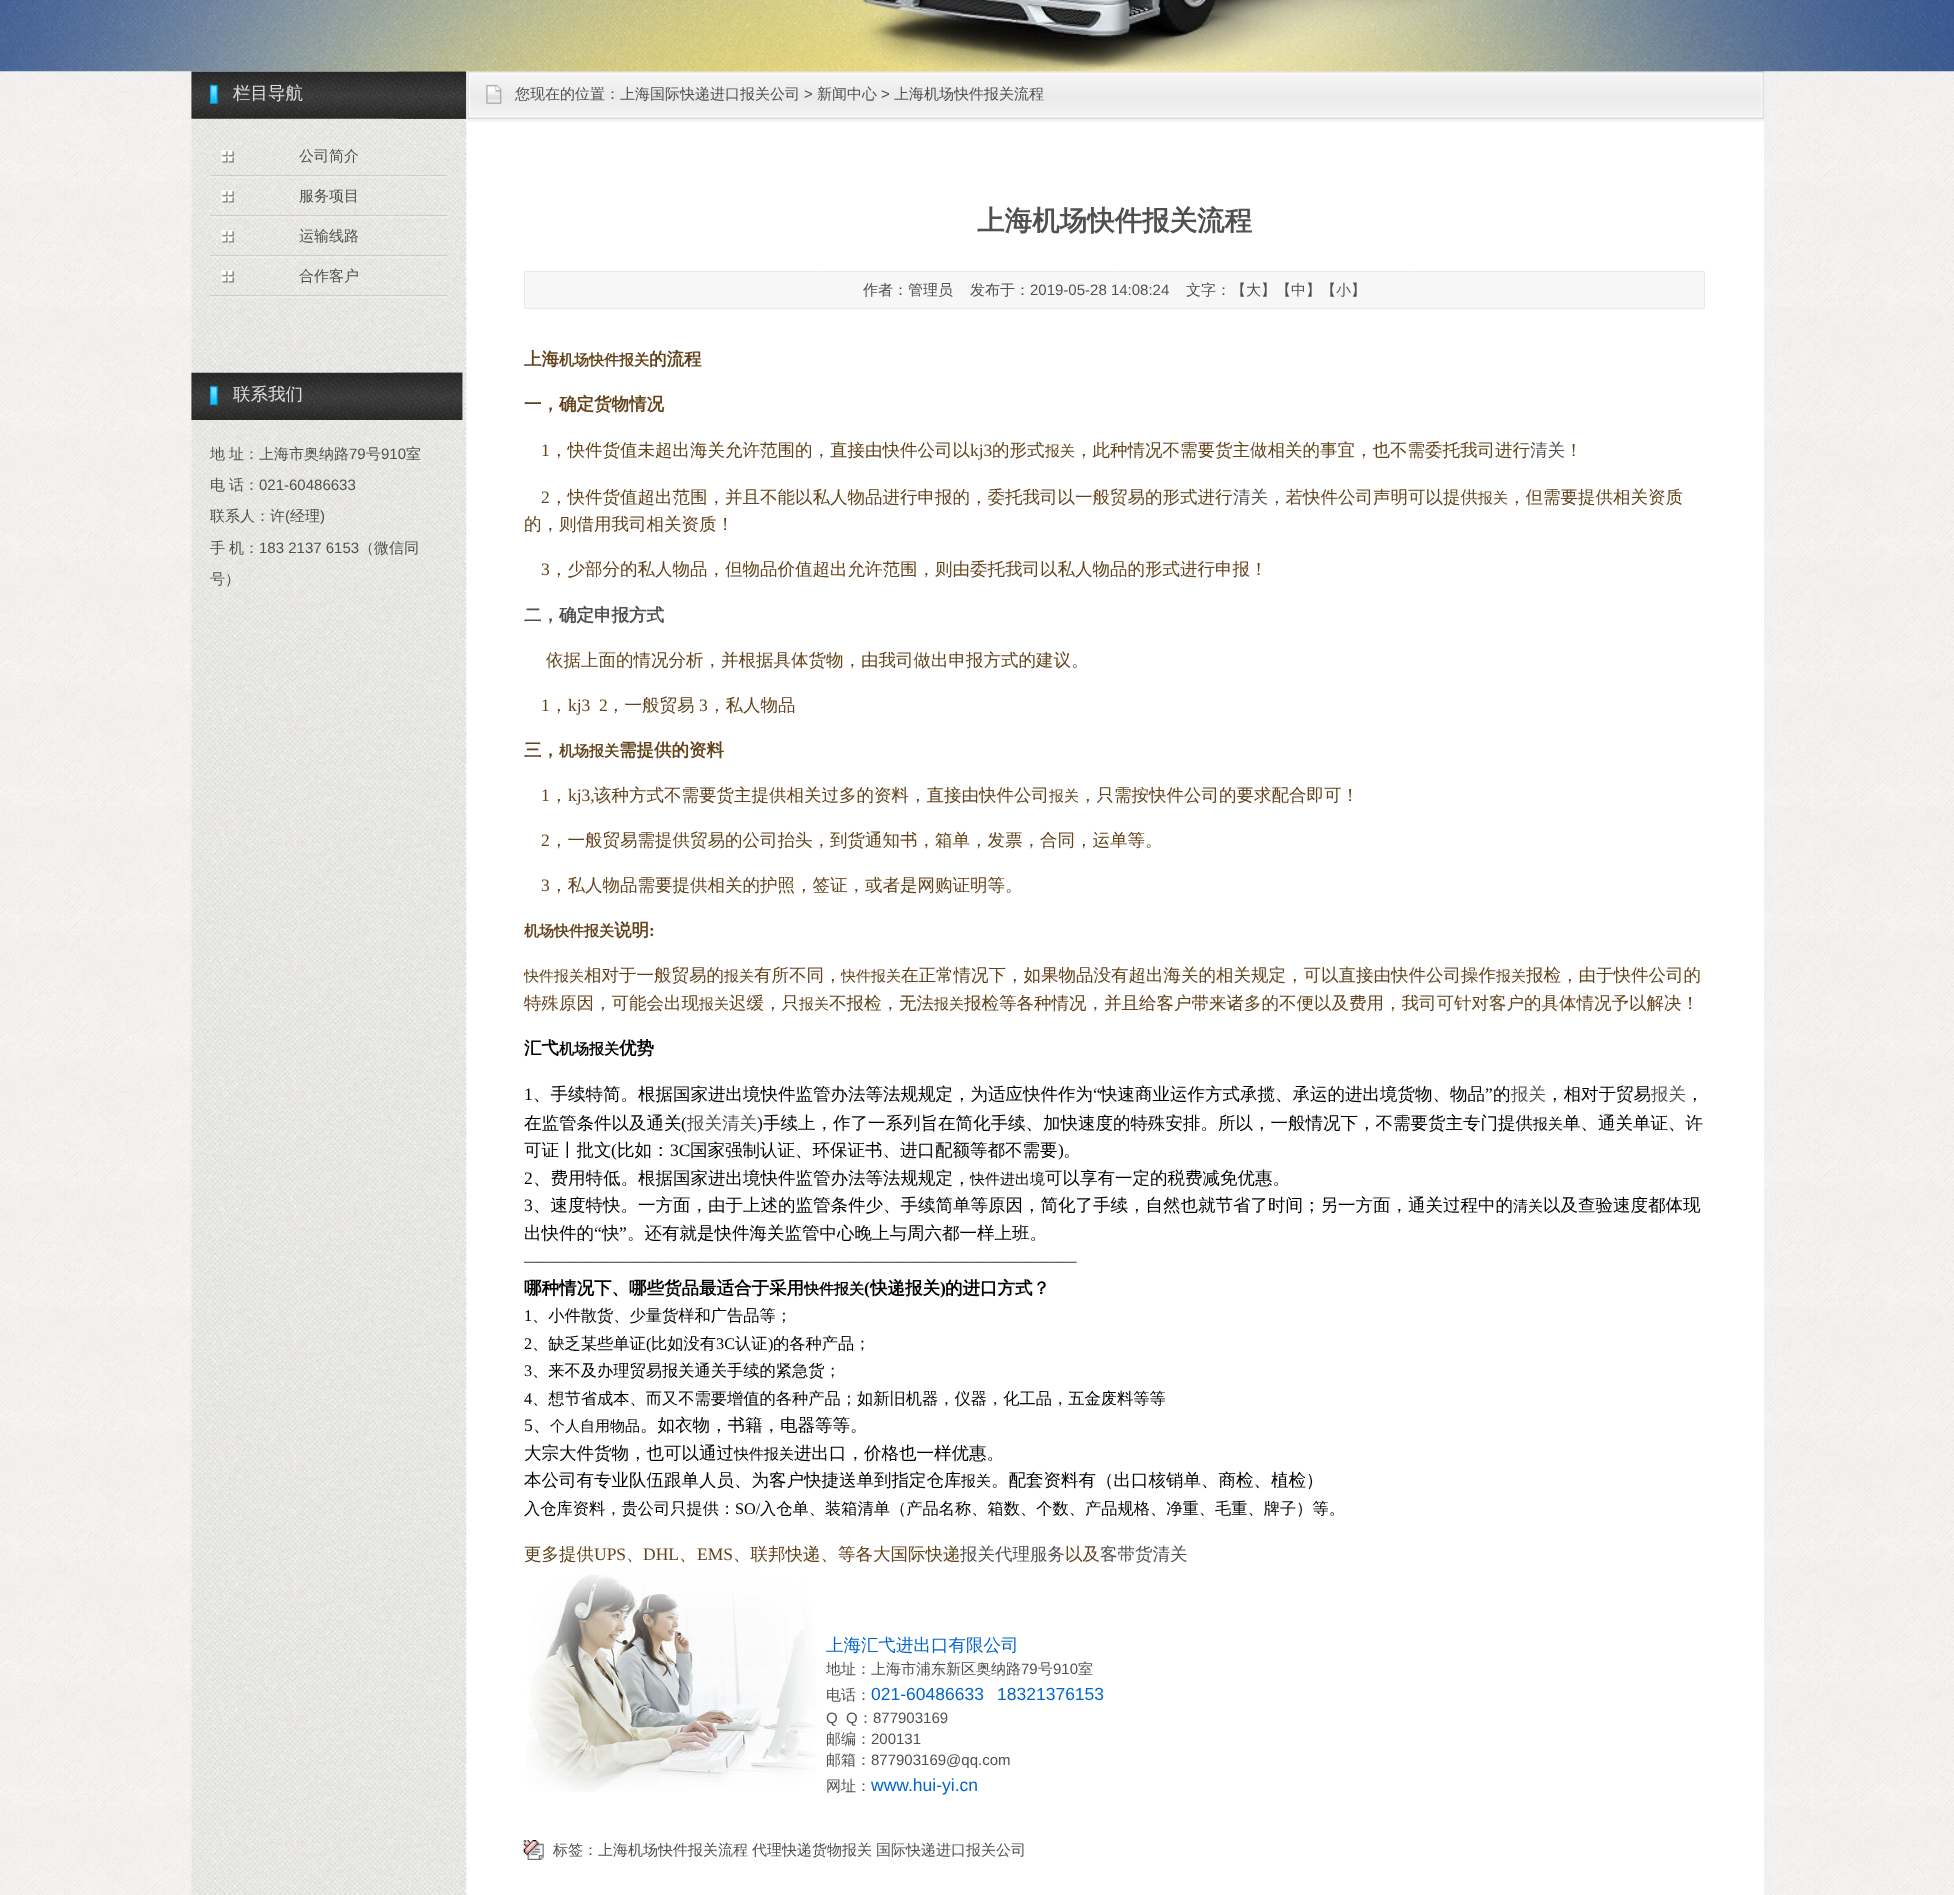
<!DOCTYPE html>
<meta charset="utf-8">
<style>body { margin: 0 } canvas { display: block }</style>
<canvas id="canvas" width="1954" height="1895"></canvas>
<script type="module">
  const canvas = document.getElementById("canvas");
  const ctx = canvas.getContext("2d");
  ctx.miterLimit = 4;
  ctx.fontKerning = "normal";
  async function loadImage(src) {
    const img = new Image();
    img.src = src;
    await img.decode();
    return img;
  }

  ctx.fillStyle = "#ffffff";
  ctx.fillRect(0, 0, 1954, 1895);
  ctx.drawImage(await loadImage("img1.png"), 0, 71, 1954, 1824);
  ctx.drawImage(await loadImage("img2.png"), 0, 0, 1954, 72);
  ctx.fillRect(191, 71, 1573, 1824);
  ctx.drawImage(await loadImage("img5.png"), 191, 71, 276, 1824);
  ctx.drawImage(await loadImage("img6.png"), 191, 71, 276, 48);
  ctx.drawImage(await loadImage("img7.png"), 397, 71, 70, 48);
  ctx.drawImage(await loadImage("img12.png"), 467, 71, 1297, 51);
  ctx.drawImage(await loadImage("img13.png"), 1701, 71, 63, 48);
  ctx.drawImage(await loadImage("img3.png"), 191, 71, 1573, 1);
  ctx.drawImage(await loadImage("img4.png"), 191, 0, 1573, 72);
  ctx.font = "500 17.5px WenQuanYi Zen Hei";
  ctx.fillStyle = "#e0e0e0";
  ctx.fillText("栏目导航", 233, 99);
  ctx.drawImage(await loadImage("img8.png"), 210, 150, 238, 28);
  ctx.font = "500 15px WenQuanYi Zen Hei";
  ctx.fillStyle = "#505050";
  ctx.fillText("公司简介", 299, 161);
  ctx.drawImage(await loadImage("img9.png"), 210, 190, 238, 28);
  ctx.fillText("服务项目", 299, 201);
  ctx.drawImage(await loadImage("img10.png"), 210, 230, 238, 28);
  ctx.fillText("运输线路", 299, 241);
  ctx.drawImage(await loadImage("img11.png"), 210, 270, 238, 28);
  ctx.fillText("合作客户", 299, 281);
  ctx.fillText("您现在的位置：上海国际快递进口报关公司", 515, 99);
  ctx.font = "15px Liberation Sans";
  ctx.fillText(">", 804, 99);
  ctx.font = "500 15px WenQuanYi Zen Hei";
  ctx.fillText("新闻中心", 817, 99);
  ctx.font = "15px Liberation Sans";
  ctx.fillText(">", 881, 99);
  ctx.font = "500 15px WenQuanYi Zen Hei";
  ctx.fillText("上海机场快件报关流程", 894, 99);
  ctx.drawImage(await loadImage("img14.png"), 191, 372, 272, 48);
  ctx.font = "500 17.5px WenQuanYi Zen Hei";
  ctx.fillStyle = "#e0e0e0";
  ctx.fillText("联系我们", 233, 400);
  ctx.drawImage(await loadImage("img15.png"), 393, 372, 70, 48);
  ctx.font = "500 15px WenQuanYi Zen Hei";
  ctx.fillStyle = "#505050";
  ctx.fillText("地", 210, 459);
  ctx.fillText("址：上海市奥纳路", 229, 459);
  ctx.font = "15px Liberation Sans";
  ctx.fillText("79", 349, 459);
  ctx.font = "500 15px WenQuanYi Zen Hei";
  ctx.fillText("号", 366, 459);
  ctx.font = "15px Liberation Sans";
  ctx.fillText("910", 381, 459);
  ctx.font = "500 15px WenQuanYi Zen Hei";
  ctx.fillText("室", 406, 459);
  ctx.fillText("电", 210, 490);
  ctx.fillText("话：", 229, 490);
  ctx.font = "15px Liberation Sans";
  ctx.fillText("021-60486633", 259, 490);
  ctx.font = "500 15px WenQuanYi Zen Hei";
  ctx.fillText("联系人：许", 210, 521);
  ctx.font = "15px Liberation Sans";
  ctx.fillText("(", 285, 521);
  ctx.font = "500 15px WenQuanYi Zen Hei";
  ctx.fillText("经理", 290, 521);
  ctx.font = "15px Liberation Sans";
  ctx.fillText(")", 320, 521);
  ctx.font = "500 15px WenQuanYi Zen Hei";
  ctx.fillText("手", 210, 553);
  ctx.fillText("机：", 229, 553);
  ctx.font = "15px Liberation Sans";
  ctx.fillText("183 2137 6153", 259, 553);
  ctx.font = "500 15px WenQuanYi Zen Hei";
  ctx.fillText("（微信同", 359, 553);
  ctx.fillText("号）", 210, 584);
  ctx.font = "bold 27.5px WenQuanYi Zen Hei";
  ctx.fillText("上海机场快件报关流程", 977, 230);
  ctx.fillStyle = "#f7f7f7";
  ctx.beginPath();
  ctx.rect(524.5, 271.5, 1180, 37);
  ctx.fill();
  ctx.strokeStyle = "#e8e8e8";
  ctx.stroke();
  ctx.font = "500 15px WenQuanYi Zen Hei";
  ctx.fillStyle = "#505050";
  ctx.fillText("作者：管理员", 863, 295);
  ctx.fillText("发布于：", 970, 295);
  ctx.font = "15px Liberation Sans";
  ctx.fillText("2019-05-28 14:08:24", 1030, 295);
  ctx.font = "500 15px WenQuanYi Zen Hei";
  ctx.fillText("文字：【大】【中】【小】", 1186, 295);
  ctx.font = "bold 17.5px WenQuanYi Zen Hei";
  ctx.fillStyle = "#62431b";
  ctx.fillText("上海", 524, 365);
  ctx.font = "bold 15px WenQuanYi Zen Hei";
  ctx.fillText("机场快件报关", 559, 365);
  ctx.font = "bold 17.5px WenQuanYi Zen Hei";
  ctx.fillText("的流程", 649, 365);
  ctx.fillText("一，确定货物情况", 524, 410);
  ctx.font = "17.5px Liberation Serif";
  ctx.fillText("1", 541, 456);
  ctx.font = "500 17.5px WenQuanYi Zen Hei";
  ctx.fillText("，快件货值未超出海关允许范围的，直接由快件公司以", 550, 456);
  ctx.font = "17.5px Liberation Serif";
  ctx.fillText("kj3", 970, 456);
  ctx.font = "500 17.5px WenQuanYi Zen Hei";
  ctx.fillText("的形式", 992, 456);
  ctx.font = "500 15px WenQuanYi Zen Hei";
  ctx.fillText("报关", 1045, 456);
  ctx.font = "500 17.5px WenQuanYi Zen Hei";
  ctx.fillText("，此种情况不需要货主做相关的事宜，也不需委托我司进行", 1075, 456);
  ctx.fillStyle = "#505050";
  ctx.fillText("清关", 1530, 456);
  ctx.fillStyle = "#62431b";
  ctx.fillText("！", 1565, 456);
  ctx.font = "17.5px Liberation Serif";
  ctx.fillText("2", 541, 503);
  ctx.font = "500 17.5px WenQuanYi Zen Hei";
  ctx.fillText("，快件货值超出范围，并且不能以私人物品进行申报的，委托我司以一般贸易的形式进行", 550, 503);
  ctx.fillStyle = "#505050";
  ctx.fillText("清关", 1233, 503);
  ctx.fillStyle = "#62431b";
  ctx.fillText("，若快件公司声明可以提供", 1268, 503);
  ctx.font = "500 15px WenQuanYi Zen Hei";
  ctx.fillText("报关", 1478, 503);
  ctx.font = "500 17.5px WenQuanYi Zen Hei";
  ctx.fillText("，但需要提供相关资质", 1508, 503);
  ctx.fillText("的，则借用我司相关资质！", 524, 530);
  ctx.font = "17.5px Liberation Serif";
  ctx.fillText("3", 541, 575);
  ctx.font = "500 17.5px WenQuanYi Zen Hei";
  ctx.fillText("，少部分的私人物品，但物品价值超出允许范围，则由委托我司以私人物品的形式进行申报！", 550, 575);
  ctx.font = "bold 17.5px WenQuanYi Zen Hei";
  ctx.fillStyle = "#505050";
  ctx.fillText("二，确定申报方式", 524, 621);
  ctx.font = "500 17.5px WenQuanYi Zen Hei";
  ctx.fillStyle = "#62431b";
  ctx.fillText("依据上面的情况分析，并根据具体货物，由我司做出申报方式的建议。", 546, 666);
  ctx.font = "17.5px Liberation Serif";
  ctx.fillText("1", 541, 711);
  ctx.font = "500 17.5px WenQuanYi Zen Hei";
  ctx.fillText("，", 550, 711);
  ctx.font = "17.5px Liberation Serif";
  ctx.fillText("kj3  2", 568, 711);
  ctx.font = "500 17.5px WenQuanYi Zen Hei";
  ctx.fillText("，一般贸易", 607, 711);
  ctx.font = "17.5px Liberation Serif";
  ctx.fillText("3", 699, 711);
  ctx.font = "500 17.5px WenQuanYi Zen Hei";
  ctx.fillText("，私人物品", 708, 711);
  ctx.font = "bold 17.5px WenQuanYi Zen Hei";
  ctx.fillText("三，", 524, 756);
  ctx.font = "bold 15px WenQuanYi Zen Hei";
  ctx.fillText("机场报关", 559, 756);
  ctx.font = "bold 17.5px WenQuanYi Zen Hei";
  ctx.fillText("需提供的资料", 619, 756);
  ctx.font = "17.5px Liberation Serif";
  ctx.fillText("1", 541, 801);
  ctx.fillText("kj3,", 568, 801);
  ctx.font = "500 17.5px WenQuanYi Zen Hei";
  ctx.fillText("该种方式不需要货主提供相关过多的资料，直接由快件公司", 594, 801);
  ctx.font = "500 15px WenQuanYi Zen Hei";
  ctx.fillText("报关", 1049, 801);
  ctx.font = "500 17.5px WenQuanYi Zen Hei";
  ctx.fillText("，只需按快件公司的要求配合即可！", 1079, 801);
  ctx.fillText("，", 550, 801);
  ctx.font = "17.5px Liberation Serif";
  ctx.fillText("2", 541, 846);
  ctx.font = "500 17.5px WenQuanYi Zen Hei";
  ctx.fillText("，一般贸易需提供贸易的公司抬头，到货通知书，箱单，发票，合同，运单等。", 550, 846);
  ctx.font = "17.5px Liberation Serif";
  ctx.fillText("3", 541, 891);
  ctx.font = "500 17.5px WenQuanYi Zen Hei";
  ctx.fillText("，私人物品需要提供相关的护照，签证，或者是网购证明等。", 550, 891);
  ctx.font = "bold 15px WenQuanYi Zen Hei";
  ctx.fillText("机场快件报关", 524, 936);
  ctx.font = "bold 17.5px WenQuanYi Zen Hei";
  ctx.fillText("说明", 614, 936);
  ctx.font = "bold 17.5px Liberation Serif";
  ctx.fillText(":", 649, 936);
  ctx.font = "500 15px WenQuanYi Zen Hei";
  ctx.fillText("快件报关", 524, 981);
  ctx.font = "500 17.5px WenQuanYi Zen Hei";
  ctx.fillText("相对于一般贸易的", 584, 981);
  ctx.font = "500 15px WenQuanYi Zen Hei";
  ctx.fillText("报关", 724, 981);
  ctx.font = "500 17.5px WenQuanYi Zen Hei";
  ctx.fillText("有所不同，", 754, 981);
  ctx.font = "500 15px WenQuanYi Zen Hei";
  ctx.fillText("快件报关", 841, 981);
  ctx.font = "500 17.5px WenQuanYi Zen Hei";
  ctx.fillText("在正常情况下，如果物品没有超出海关的相关规定，可以直接由快件公司操作", 901, 981);
  ctx.font = "500 15px WenQuanYi Zen Hei";
  ctx.fillText("报关", 1496, 981);
  ctx.font = "500 17.5px WenQuanYi Zen Hei";
  ctx.fillText("报检，由于快件公司的", 1526, 981);
  ctx.fillText("特殊原因，可能会出现", 524, 1009);
  ctx.font = "500 15px WenQuanYi Zen Hei";
  ctx.fillText("报关", 699, 1009);
  ctx.font = "500 17.5px WenQuanYi Zen Hei";
  ctx.fillText("迟缓，只", 729, 1009);
  ctx.font = "500 15px WenQuanYi Zen Hei";
  ctx.fillText("报关", 799, 1009);
  ctx.font = "500 17.5px WenQuanYi Zen Hei";
  ctx.fillText("不报检，无法", 829, 1009);
  ctx.font = "500 15px WenQuanYi Zen Hei";
  ctx.fillText("报关", 934, 1009);
  ctx.font = "500 17.5px WenQuanYi Zen Hei";
  ctx.fillText("报检等各种情况，并且给客户带来诸多的不便以及费用，我司可针对客户的具体情况予以解决！", 964, 1009);
  ctx.font = "bold 17.5px WenQuanYi Zen Hei";
  ctx.fillStyle = "#000000";
  ctx.fillText("汇弋", 524, 1054);
  ctx.font = "bold 15px WenQuanYi Zen Hei";
  ctx.fillText("机场报关", 559, 1054);
  ctx.font = "bold 17.5px WenQuanYi Zen Hei";
  ctx.fillText("优势", 619, 1054);
  ctx.font = "17.5px Liberation Serif";
  ctx.fillText("1", 524, 1100);
  ctx.font = "500 17.5px WenQuanYi Zen Hei";
  ctx.fillText("、手续特简。根据国家进出境快件监管办法等法规规定，为适应快件作为", 533, 1100);
  ctx.font = "17.5px Liberation Serif";
  ctx.fillText("“", 1093, 1100);
  ctx.font = "500 17.5px WenQuanYi Zen Hei";
  ctx.fillText("快速商业运作方式承揽、承运的进出境货物、物品", 1100, 1100);
  ctx.font = "17.5px Liberation Serif";
  ctx.fillText("”", 1485, 1100);
  ctx.font = "500 17.5px WenQuanYi Zen Hei";
  ctx.fillText("的", 1493, 1100);
  ctx.fillStyle = "#505050";
  ctx.fillText("报关", 1511, 1100);
  ctx.fillStyle = "#000000";
  ctx.fillText("，相对于贸易", 1546, 1100);
  ctx.fillStyle = "#505050";
  ctx.fillText("报关", 1651, 1100);
  ctx.fillStyle = "#000000";
  ctx.fillText("，", 1686, 1100);
  ctx.fillText("在监管条件以及通关", 524, 1129);
  ctx.font = "17.5px Liberation Serif";
  ctx.fillText("(", 681, 1129);
  ctx.font = "500 17.5px WenQuanYi Zen Hei";
  ctx.fillStyle = "#505050";
  ctx.fillText("报关清关", 687, 1129);
  ctx.font = "17.5px Liberation Serif";
  ctx.fillStyle = "#000000";
  ctx.fillText(")", 757, 1129);
  ctx.font = "500 17.5px WenQuanYi Zen Hei";
  ctx.fillText("手续上，作了一系列旨在简化手续、加快速度的特殊安排。所以，一般情况下，不需要货主专门提供", 763, 1129);
  ctx.font = "500 15px WenQuanYi Zen Hei";
  ctx.fillText("报关", 1533, 1129);
  ctx.font = "500 17.5px WenQuanYi Zen Hei";
  ctx.fillText("单、通关单证、许", 1563, 1129);
  ctx.fillText("可证丨批文", 524, 1156);
  ctx.font = "17.5px Liberation Serif";
  ctx.fillText("(", 611, 1156);
  ctx.font = "500 17.5px WenQuanYi Zen Hei";
  ctx.fillText("比如：", 617, 1156);
  ctx.font = "17.5px Liberation Serif";
  ctx.fillText("3C", 670, 1156);
  ctx.font = "500 17.5px WenQuanYi Zen Hei";
  ctx.fillText("国家强制认证、环保证书、进口配额等都不需要", 690, 1156);
  ctx.font = "17.5px Liberation Serif";
  ctx.fillText(")", 1058, 1156);
  ctx.font = "500 17.5px WenQuanYi Zen Hei";
  ctx.fillText("。", 1063, 1156);
  ctx.font = "17.5px Liberation Serif";
  ctx.fillText("2", 524, 1184);
  ctx.font = "500 17.5px WenQuanYi Zen Hei";
  ctx.fillText("、费用特低。根据国家进出境快件监管办法等法规规定，", 533, 1184);
  ctx.font = "500 15px WenQuanYi Zen Hei";
  ctx.fillText("快件进出境", 970, 1184);
  ctx.font = "500 17.5px WenQuanYi Zen Hei";
  ctx.fillText("可以享有一定的税费减免优惠。", 1045, 1184);
  ctx.font = "17.5px Liberation Serif";
  ctx.fillText("3", 524, 1211);
  ctx.font = "500 17.5px WenQuanYi Zen Hei";
  ctx.fillText("、速度特快。一方面，由于上述的监管条件少、手续简单等原因，简化了手续，自然也就节省了时间；另一方面，通关过程中的", 533, 1211);
  ctx.font = "500 15px WenQuanYi Zen Hei";
  ctx.fillText("清关", 1513, 1211);
  ctx.font = "500 17.5px WenQuanYi Zen Hei";
  ctx.fillText("以及查验速度都体现", 1543, 1211);
  ctx.fillText("出快件的", 524, 1239);
  ctx.font = "17.5px Liberation Serif";
  ctx.fillText("“", 594, 1239);
  ctx.font = "500 17.5px WenQuanYi Zen Hei";
  ctx.fillText("快", 602, 1239);
  ctx.font = "17.5px Liberation Serif";
  ctx.fillText("”", 619, 1239);
  ctx.font = "500 17.5px WenQuanYi Zen Hei";
  ctx.fillText("。还有就是快件海关监管中心晚上与周六都一样上班。", 627, 1239);
  ctx.font = "16.25px Liberation Serif";
  ctx.fillText("——————————————————————————————————", 524, 1266);
  ctx.font = "bold 17.5px WenQuanYi Zen Hei";
  ctx.fillText("哪种情况下、哪些货品最适合于采用", 524, 1294);
  ctx.font = "bold 15px WenQuanYi Zen Hei";
  ctx.fillText("快件报关", 804, 1294);
  ctx.font = "bold 17.5px Liberation Serif";
  ctx.fillText("(", 864, 1294);
  ctx.font = "bold 17.5px WenQuanYi Zen Hei";
  ctx.fillText("快递报关", 870, 1294);
  ctx.font = "bold 17.5px Liberation Serif";
  ctx.fillText(")", 940, 1294);
  ctx.font = "bold 17.5px WenQuanYi Zen Hei";
  ctx.fillText("的进口方式？", 945, 1294);
  ctx.font = "16.25px Liberation Serif";
  ctx.fillText("1", 524, 1321);
  ctx.font = "500 16.25px WenQuanYi Zen Hei";
  ctx.fillText("、小件散货、少量货样和广告品等；", 532, 1321);
  ctx.font = "16.25px Liberation Serif";
  ctx.fillText("2", 524, 1349);
  ctx.font = "500 16.25px WenQuanYi Zen Hei";
  ctx.fillText("、缺乏某些单证", 532, 1349);
  ctx.font = "16.25px Liberation Serif";
  ctx.fillText("(", 646, 1349);
  ctx.font = "500 16.25px WenQuanYi Zen Hei";
  ctx.fillText("比如没有", 651, 1349);
  ctx.font = "16.25px Liberation Serif";
  ctx.fillText("3C", 716, 1349);
  ctx.font = "500 16.25px WenQuanYi Zen Hei";
  ctx.fillText("认证", 735, 1349);
  ctx.font = "16.25px Liberation Serif";
  ctx.fillText(")", 768, 1349);
  ctx.font = "500 16.25px WenQuanYi Zen Hei";
  ctx.fillText("的各种产品；", 773, 1349);
  ctx.font = "16.25px Liberation Serif";
  ctx.fillText("3", 524, 1376);
  ctx.font = "500 16.25px WenQuanYi Zen Hei";
  ctx.fillText("、来不及办理贸易报关通关手续的紧急货；", 532, 1376);
  ctx.font = "16.25px Liberation Serif";
  ctx.fillText("4", 524, 1404);
  ctx.font = "500 16.25px WenQuanYi Zen Hei";
  ctx.fillText("、想节省成本、而又不需要增值的各种产品；如新旧机器，仪器，化工品，五金废料等等", 532, 1404);
  ctx.font = "17.5px Liberation Serif";
  ctx.fillText("5", 524, 1431);
  ctx.font = "500 17.5px WenQuanYi Zen Hei";
  ctx.fillText("、", 533, 1431);
  ctx.font = "500 15px WenQuanYi Zen Hei";
  ctx.fillText("个人自用物品", 550, 1431);
  ctx.font = "500 17.5px WenQuanYi Zen Hei";
  ctx.fillText("。如衣物，书籍，电器等等。", 640, 1431);
  ctx.fillText("大宗大件货物，也可以通过", 524, 1459);
  ctx.font = "500 15px WenQuanYi Zen Hei";
  ctx.fillText("快件报关", 734, 1459);
  ctx.font = "500 17.5px WenQuanYi Zen Hei";
  ctx.fillText("进出口，价格也一样优惠。", 794, 1459);
  ctx.fillText("本公司有专业队伍跟单人员、为客户快捷送单到指定仓库", 524, 1486);
  ctx.font = "500 15px WenQuanYi Zen Hei";
  ctx.fillText("报关", 961, 1486);
  ctx.font = "500 17.5px WenQuanYi Zen Hei";
  ctx.fillText("。配套资料有（出口核销单、商检、植检）", 991, 1486);
  ctx.font = "500 16.25px WenQuanYi Zen Hei";
  ctx.fillText("入仓库资料，贵公司只提供：", 524, 1514);
  ctx.font = "16.25px Liberation Serif";
  ctx.fillText("SO/", 735, 1514);
  ctx.font = "500 16.25px WenQuanYi Zen Hei";
  ctx.fillText("入仓单、装箱清单（产品名称、箱数、个数、产品规格、净重、毛重、牌子）等。", 760, 1514);
  ctx.font = "500 17.5px WenQuanYi Zen Hei";
  ctx.fillStyle = "#62431b";
  ctx.fillText("更多提供", 524, 1560);
  ctx.font = "17.5px Liberation Serif";
  ctx.fillText("UPS", 594, 1560);
  ctx.font = "500 17.5px WenQuanYi Zen Hei";
  ctx.fillText("、", 626, 1560);
  ctx.font = "17.5px Liberation Serif";
  ctx.fillText("DHL", 643, 1560);
  ctx.font = "500 17.5px WenQuanYi Zen Hei";
  ctx.fillText("、", 679, 1560);
  ctx.font = "17.5px Liberation Serif";
  ctx.fillText("EMS", 697, 1560);
  ctx.font = "500 17.5px WenQuanYi Zen Hei";
  ctx.fillText("、联邦快递、等各大国际快递", 733, 1560);
  ctx.fillStyle = "#505050";
  ctx.fillText("报关代理服务", 960, 1560);
  ctx.fillStyle = "#62431b";
  ctx.fillText("以及", 1065, 1560);
  ctx.fillStyle = "#505050";
  ctx.fillText("客带货清关", 1100, 1560);
  ctx.drawImage(await loadImage("img16.png"), 527, 1574, 290, 218);
  ctx.fillStyle = "#0066cc";
  ctx.fillText("上海汇弋进出口有限公司", 826, 1651);
  ctx.font = "500 15px WenQuanYi Zen Hei";
  ctx.fillStyle = "#505050";
  ctx.fillText("地址：上海市浦东新区奥纳路", 826, 1674);
  ctx.font = "15px Liberation Sans";
  ctx.fillText("79", 1021, 1674);
  ctx.font = "500 15px WenQuanYi Zen Hei";
  ctx.fillText("号", 1038, 1674);
  ctx.font = "15px Liberation Sans";
  ctx.fillText("910", 1053, 1674);
  ctx.font = "500 15px WenQuanYi Zen Hei";
  ctx.fillText("室", 1078, 1674);
  ctx.fillText("电话：", 826, 1700);
  ctx.font = "17.5px Liberation Sans";
  ctx.fillStyle = "#0066cc";
  ctx.fillText("021-60486633", 871, 1700);
  ctx.fillText("18321376153", 997, 1700);
  ctx.font = "15px Liberation Sans";
  ctx.fillStyle = "#505050";
  ctx.fillText("Q  Q", 826, 1723);
  ctx.font = "500 15px WenQuanYi Zen Hei";
  ctx.fillText("：", 858, 1723);
  ctx.font = "15px Liberation Sans";
  ctx.fillText("877903169", 873, 1723);
  ctx.font = "500 15px WenQuanYi Zen Hei";
  ctx.fillText("邮编：", 826, 1744);
  ctx.font = "15px Liberation Sans";
  ctx.fillText("200131", 871, 1744);
  ctx.font = "500 15px WenQuanYi Zen Hei";
  ctx.fillText("邮箱：", 826, 1765);
  ctx.font = "15px Liberation Sans";
  ctx.fillText("877903169@qq.com", 871, 1765);
  ctx.font = "500 15px WenQuanYi Zen Hei";
  ctx.fillText("网址：", 826, 1791);
  ctx.font = "17.5px Liberation Sans";
  ctx.fillStyle = "#0066cc";
  ctx.fillText("www.hui-yi.cn", 871, 1791);
  ctx.drawImage(await loadImage("img17.png"), 523, 1840, 21, 20);
  ctx.font = "500 15px WenQuanYi Zen Hei";
  ctx.fillStyle = "#505050";
  ctx.fillText("标签：上海机场快件报关流程", 553, 1855);
  ctx.fillText("代理快递货物报关", 752, 1855);
  ctx.fillText("国际快递进口报关公司", 876, 1855);
</script>
